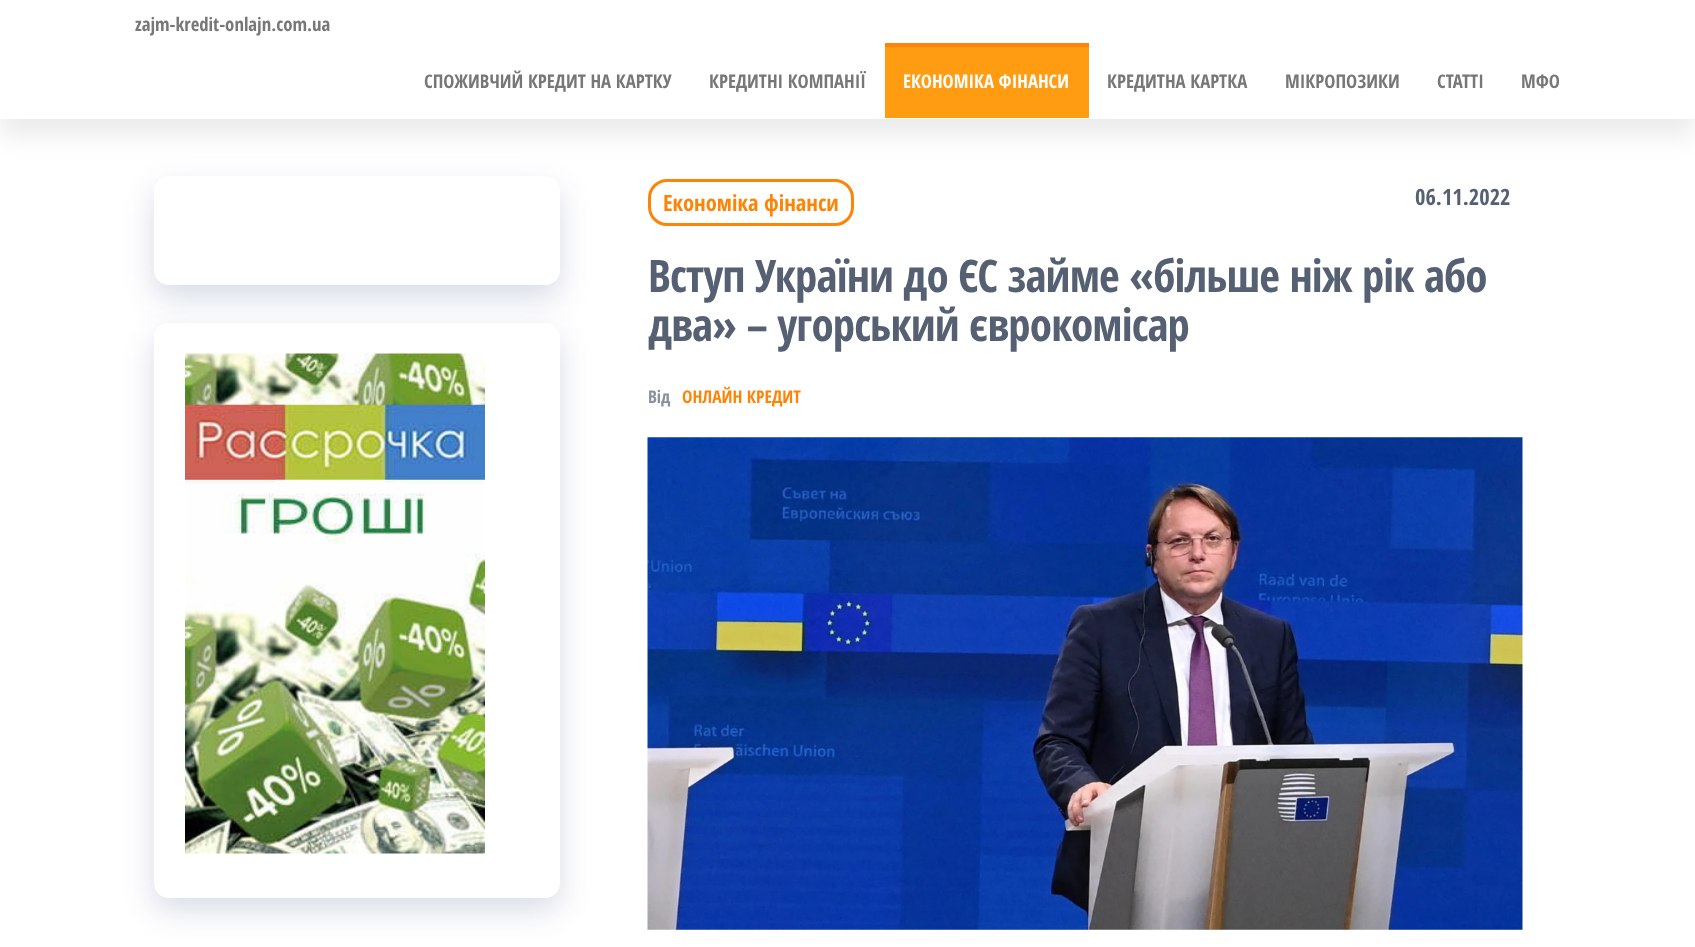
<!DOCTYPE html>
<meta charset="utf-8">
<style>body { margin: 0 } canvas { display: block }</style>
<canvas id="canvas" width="1695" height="947"></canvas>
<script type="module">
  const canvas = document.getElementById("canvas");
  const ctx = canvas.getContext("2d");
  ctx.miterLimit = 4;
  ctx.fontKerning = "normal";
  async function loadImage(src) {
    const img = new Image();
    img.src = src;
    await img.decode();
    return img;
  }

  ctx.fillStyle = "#ffffff";
  ctx.fillRect(0, 0, 1695, 947);
  ctx.fillStyle = "rgba(0, 0, 0, 0.08)";
  ctx.filter = "blur(12.5px)";
  ctx.beginPath();
  ctx.rect(0, -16, 1695, 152);
  ctx.fill();
  ctx.filter = "none";
  ctx.fillStyle = "#ffffff";
  ctx.fillRect(0, 0, 1695, 119);
  ctx.font = "bold 18.75px Open Sans Condensed";
  ctx.fillStyle = "#777777";
  ctx.fillText("zajm-kredit-onlajn.com.ua", 135, 31);
  ctx.fillText("СПОЖИВЧИЙ КРЕДИТ НА КАРТКУ", 424, 88);
  ctx.fillText("КРЕДИТНІ КОМПАНІЇ", 709, 88);
  ctx.fillStyle = "#ff9c12";
  ctx.fillRect(885, 47, 204, 71);
  ctx.fillStyle = "#fd8407";
  ctx.fillRect(885, 43, 204, 4);
  ctx.fillStyle = "#ffffff";
  ctx.fillText("ЕКОНОМІКА ФІНАНСИ", 903, 88);
  ctx.fillStyle = "#777777";
  ctx.fillText("КРЕДИТНА КАРТКА", 1107, 88);
  ctx.fillText("МІКРОПОЗИКИ", 1285, 88);
  ctx.fillText("СТАТТІ", 1437, 88);
  ctx.fillText("МФО", 1521, 88);
  ctx.save();
  ctx.beginPath();
  ctx.moveTo(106, 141);
  ctx.lineTo(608, 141);
  ctx.lineTo(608, 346);
  ctx.lineTo(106, 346);
  ctx.closePath();
  ctx.moveTo(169, 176);
  ctx.lineTo(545, 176);
  ctx.bezierCurveTo(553.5, 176, 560, 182.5, 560, 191);
  ctx.lineTo(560, 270);
  ctx.bezierCurveTo(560, 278.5, 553.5, 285, 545, 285);
  ctx.lineTo(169, 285);
  ctx.bezierCurveTo(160.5, 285, 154, 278.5, 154, 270);
  ctx.lineTo(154, 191);
  ctx.bezierCurveTo(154, 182.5, 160.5, 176, 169, 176);
  ctx.closePath();
  ctx.clip("evenodd");
  ctx.fillStyle = "rgba(28, 45, 113, 0.17)";
  ctx.filter = "blur(15.5px)";
  ctx.beginPath();
  ctx.roundRect(154, 189, 406, 109, 15);
  ctx.fill();
  ctx.filter = "none";
  ctx.restore();
  ctx.save();
  ctx.beginPath();
  ctx.moveTo(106, 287);
  ctx.lineTo(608, 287);
  ctx.lineTo(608, 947);
  ctx.lineTo(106, 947);
  ctx.closePath();
  ctx.moveTo(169, 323);
  ctx.lineTo(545, 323);
  ctx.bezierCurveTo(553.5, 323, 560, 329.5, 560, 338);
  ctx.lineTo(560, 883);
  ctx.bezierCurveTo(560, 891.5, 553.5, 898, 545, 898);
  ctx.lineTo(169, 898);
  ctx.bezierCurveTo(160.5, 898, 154, 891.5, 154, 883);
  ctx.lineTo(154, 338);
  ctx.bezierCurveTo(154, 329.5, 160.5, 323, 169, 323);
  ctx.closePath();
  ctx.clip("evenodd");
  ctx.fillStyle = "rgba(28, 45, 113, 0.17)";
  ctx.filter = "blur(15.5px)";
  ctx.beginPath();
  ctx.roundRect(154, 335, 406, 575, 15);
  ctx.fill();
  ctx.filter = "none";
  ctx.restore();
  ctx.drawImage(await loadImage("img1.png"), 185, 353, 300, 501);
  ctx.beginPath();
  ctx.roundRect(649.5, 180.5, 203, 44, 17.5);
  ctx.strokeStyle = "#fd8407";
  ctx.lineWidth = 3;
  ctx.stroke();
  ctx.font = "bold 22.5px Open Sans Condensed";
  ctx.fillStyle = "#fd8407";
  ctx.fillText("Економіка фінанси", 663, 211);
  ctx.fillStyle = "#566073";
  ctx.fillText("06.11.2022", 1415, 205);
  ctx.letterSpacing = "-0.9px";
  ctx.font = "bold 45px Open Sans Condensed";
  ctx.fillText("Вступ України до ЄС займе «більше ніж рік або", 648, 292);
  ctx.fillText("два» – угорський єврокомісар", 648, 341);
  ctx.letterSpacing = "0px";
  ctx.font = "bold 17.5px Open Sans Condensed";
  ctx.fillStyle = "#89909d";
  ctx.fillText("Від", 648, 403);
  ctx.fillStyle = "#fd8407";
  ctx.fillText("ОНЛАЙН КРЕДИТ", 682, 403);
  ctx.drawImage(await loadImage("img2.png"), 647, 437, 876, 493);
</script>
